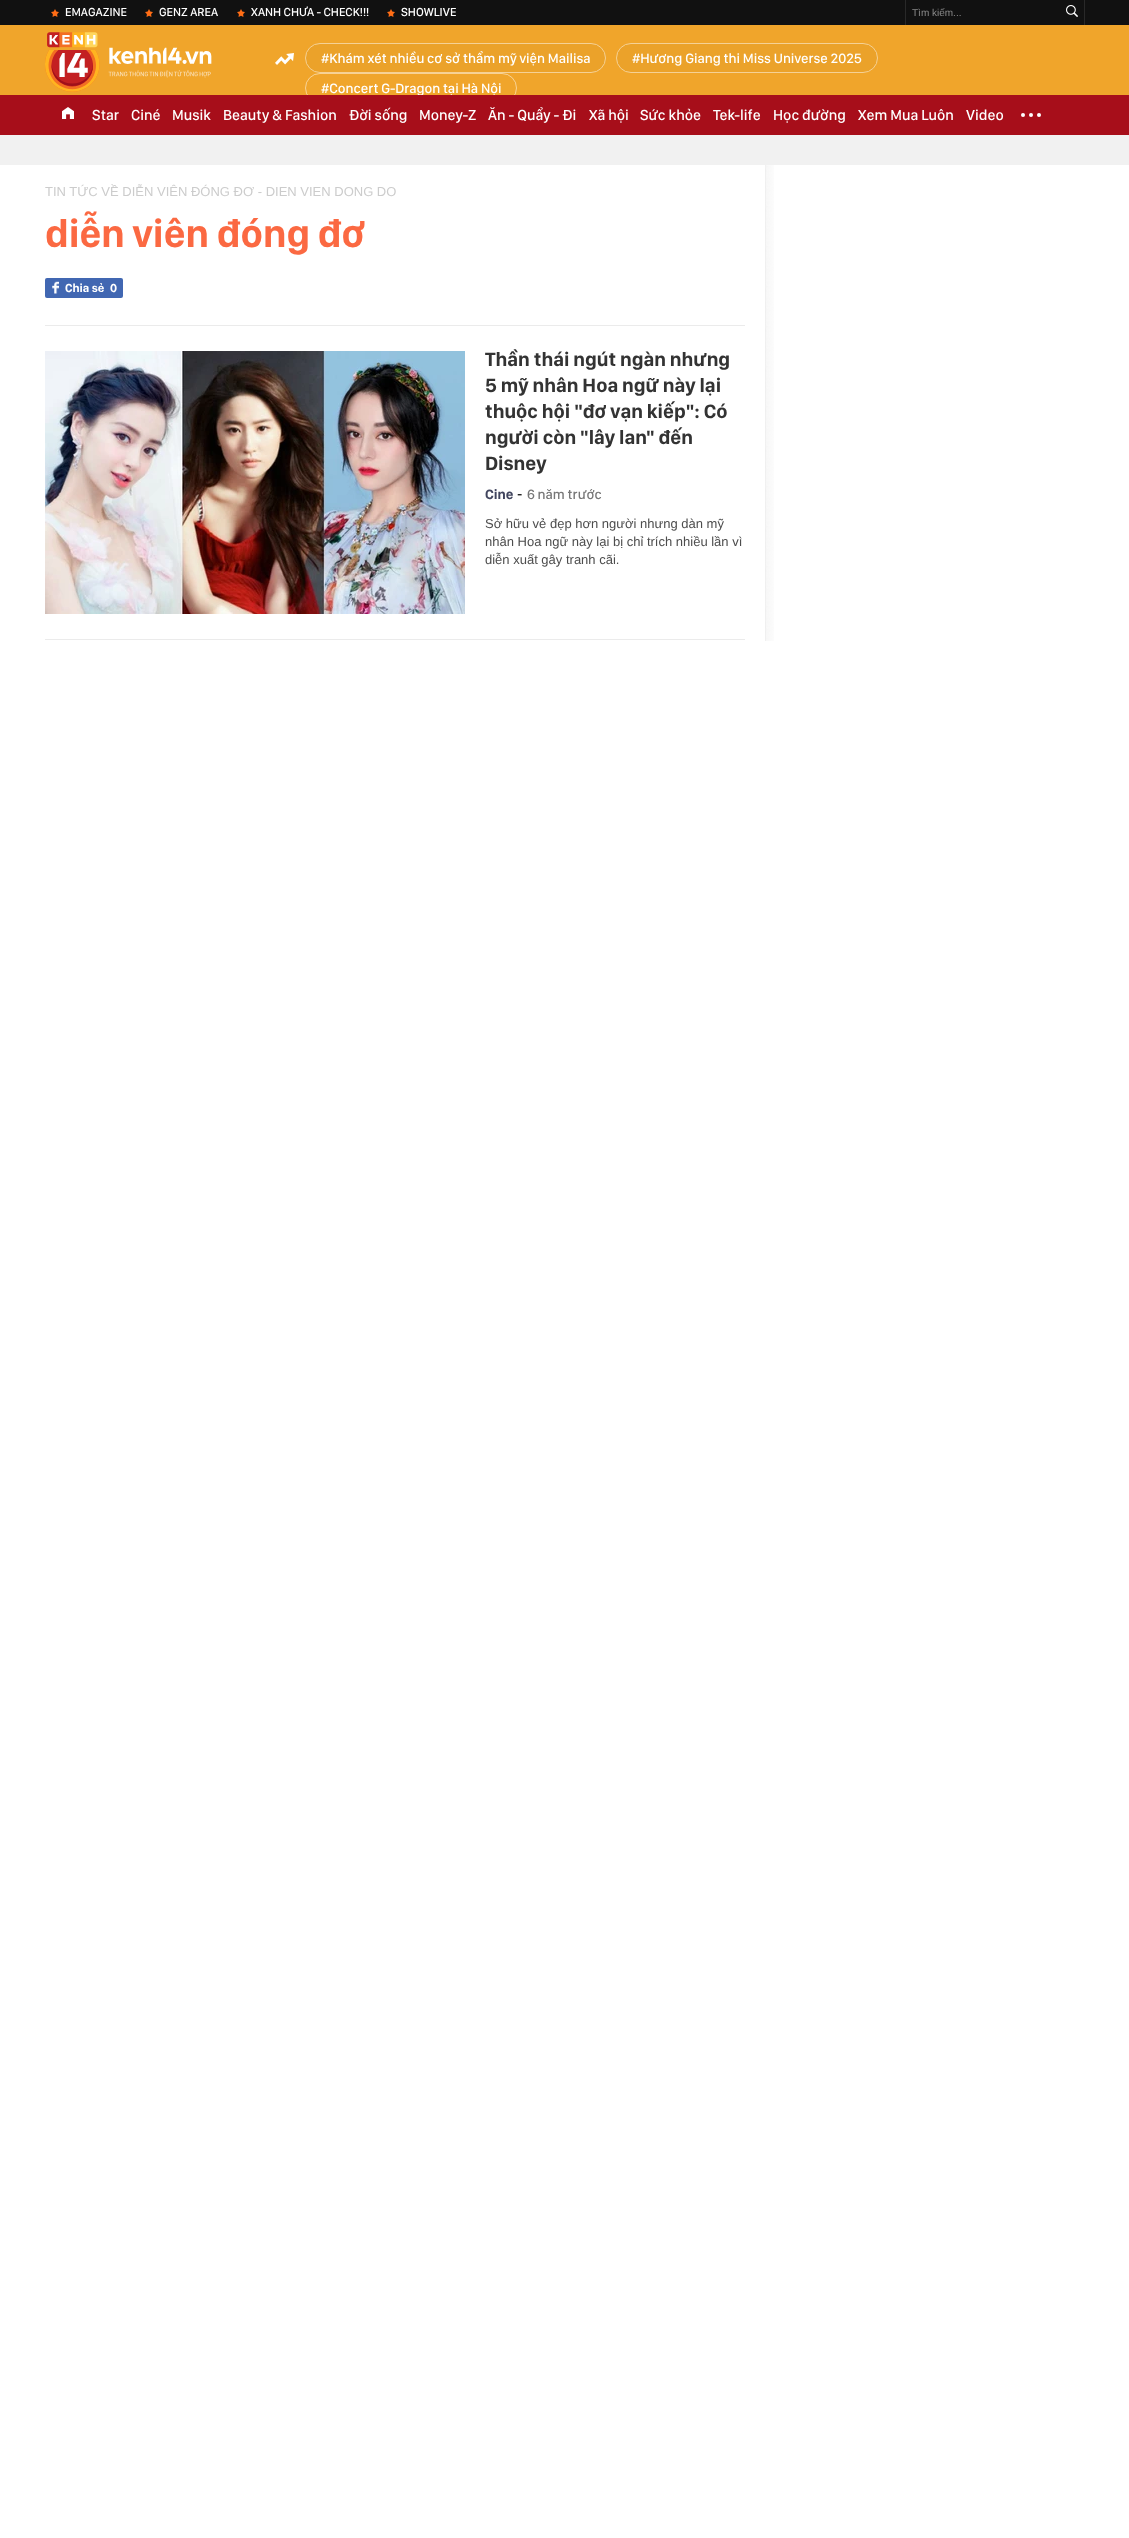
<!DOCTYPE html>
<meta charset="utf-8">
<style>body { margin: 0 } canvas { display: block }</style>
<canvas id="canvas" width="1129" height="2538"></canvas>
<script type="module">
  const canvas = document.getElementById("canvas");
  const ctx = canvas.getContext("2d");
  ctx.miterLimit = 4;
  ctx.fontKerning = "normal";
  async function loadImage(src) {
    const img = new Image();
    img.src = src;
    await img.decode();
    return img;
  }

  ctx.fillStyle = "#ffffff";
  ctx.fillRect(0, 0, 1129, 2538);
  ctx.fillStyle = "#111111";
  ctx.fillRect(0, 0, 1129, 25);
  ctx.drawImage(await loadImage("img1.png"), 51, 9, 8, 8);
  ctx.font = "500 12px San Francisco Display";
  ctx.fillStyle = "#ffffff";
  ctx.fillText("EMAGAZINE", 65, 16);
  ctx.drawImage(await loadImage("img1.png"), 145, 9, 8, 8);
  ctx.fillText("GENZ AREA", 159, 16);
  ctx.drawImage(await loadImage("img1.png"), 237, 9, 8, 8);
  ctx.fillText("XANH CHƯA - CHECK!!!", 251, 16);
  ctx.drawImage(await loadImage("img1.png"), 387, 9, 8, 8);
  ctx.fillText("SHOWLIVE", 401, 16);
  ctx.fillStyle = "#292929";
  ctx.fillRect(1084, 0, 1, 25);
  ctx.fillRect(905, 0, 1, 25);
  ctx.font = "10px Liberation Sans";
  ctx.fillStyle = "#8a8a8a";
  ctx.fillText("Tìm kiếm...", 912, 16);
  ctx.drawImage(await loadImage("img2.png"), 1066, 5, 12, 12);
  ctx.fillStyle = "#f0a52b";
  ctx.fillRect(0, 25, 1129, 70);
  ctx.drawImage(await loadImage("img3.png"), 45, 32, 167, 60);
  ctx.drawImage(await loadImage("img4.png"), 275, 53, 19, 12);
  ctx.fillStyle = "#eba22a";
  ctx.beginPath();
  ctx.roundRect(305.5, 43.5, 300, 29, 14.5);
  ctx.fill();
  ctx.strokeStyle = "#f5d195";
  ctx.stroke();
  ctx.font = "500 14px San Francisco Display";
  ctx.fillStyle = "#ffffff";
  ctx.fillText("#Khám xét nhiều cơ sở thẩm mỹ viện Mailisa", 321, 63);
  ctx.fillStyle = "#eba22a";
  ctx.beginPath();
  ctx.roundRect(616.5, 43.5, 261, 29, 14.5);
  ctx.fill();
  ctx.stroke();
  ctx.fillStyle = "#ffffff";
  ctx.fillText("#Hương Giang thi Miss Universe 2025", 632, 63);
  ctx.beginPath();
  ctx.roundRect(305.5, 73.5, 211, 29, 14.5);
  ctx.strokeStyle = "rgba(255, 255, 255, 0.5)";
  ctx.stroke();
  ctx.fillText("#Concert G-Dragon tại Hà Nội", 321, 93);
  ctx.fillStyle = "#a70e1a";
  ctx.fillRect(0, 95, 1129, 40);
  ctx.drawImage(await loadImage("img5.png"), 62, 107, 12, 12);
  ctx.font = "500 15px San Francisco Display";
  ctx.fillStyle = "#ffffff";
  ctx.fillText("Star", 92, 120);
  ctx.fillText("Ciné", 131, 120);
  ctx.fillText("Musik", 172, 120);
  ctx.fillText("Beauty & Fashion", 223, 120);
  ctx.fillText("Đời sống", 349, 120);
  ctx.fillText("Money-Z", 419, 120);
  ctx.fillText("Ăn - Quẩy - Đi", 488, 120);
  ctx.fillText("Xã hội", 589, 120);
  ctx.fillText("Sức khỏe", 640, 120);
  ctx.fillText("Tek-life", 713, 120);
  ctx.fillText("Học đường", 773, 120);
  ctx.fillText("Xem Mua Luôn", 858, 120);
  ctx.fillText("Video", 966, 120);
  ctx.beginPath();
  ctx.arc(1023, 115, 2, 0, Math.PI * 2);
  ctx.fill();
  ctx.beginPath();
  ctx.arc(1031, 115, 2, 0, Math.PI * 2);
  ctx.fill();
  ctx.beginPath();
  ctx.arc(1039, 115, 2, 0, Math.PI * 2);
  ctx.fill();
  ctx.fillStyle = "#f1f1f1";
  ctx.fillRect(0, 135, 1129, 30);
  ctx.fillStyle = "#ebebeb";
  ctx.fillRect(45, 325, 700, 1);
  ctx.font = "13px Liberation Sans";
  ctx.fillStyle = "#cccccc";
  ctx.fillText("TIN TỨC VỀ DIỄN VIÊN ĐÓNG ĐƠ - DIEN VIEN DONG DO", 45, 196);
  ctx.font = "bold 40px San Francisco Display";
  ctx.fillStyle = "#fb6942";
  ctx.fillText("diễn viên đóng đơ", 45, 247);
  ctx.fillStyle = "#4167b2";
  ctx.beginPath();
  ctx.roundRect(45, 278, 78, 20, 2);
  ctx.fill();
  ctx.drawImage(await loadImage("img6.png"), 52, 281, 7, 13);
  ctx.font = "bold 12px San Francisco Display";
  ctx.fillStyle = "#ffffff";
  ctx.fillText("Chia sẻ", 65, 292);
  ctx.fillText("0", 110, 292);
  ctx.fillStyle = "#ebebeb";
  ctx.fillRect(45, 639, 700, 1);
  ctx.drawImage(await loadImage("img7.png"), 45, 351, 420, 263);
  ctx.font = "bold 20px San Francisco Display";
  ctx.fillStyle = "#333333";
  ctx.fillText("Thần thái ngút ngàn nhưng", 485, 366);
  ctx.fillText("5 mỹ nhân Hoa ngữ này lại", 485, 392);
  ctx.fillText("thuộc hội \"đơ vạn kiếp\": Có", 485, 418);
  ctx.fillText("người còn \"lây lan\" đến", 485, 444);
  ctx.fillText("Disney", 485, 470);
  ctx.font = "bold 14px San Francisco Display";
  ctx.fillStyle = "#41455e";
  ctx.fillText("Cine", 485, 499);
  ctx.font = "16px Liberation Sans";
  ctx.fillStyle = "#000000";
  ctx.fillText("-", 517, 499);
  ctx.font = "500 14px San Francisco Display";
  ctx.fillStyle = "#777777";
  ctx.fillText("6 năm trước", 527, 499);
  ctx.font = "13px Liberation Sans";
  ctx.fillStyle = "#4d4d4d";
  ctx.fillText("Sở hữu vẻ đẹp hơn người nhưng dàn mỹ", 485, 528);
  ctx.fillText("nhân Hoa ngữ này lại bị chỉ trích nhiều lần vì", 485, 546);
  ctx.fillText("diễn xuất gây tranh cãi.", 485, 564);
  ctx.drawImage(await loadImage("img8.png"), 765, 165, 9, 476);
</script>
